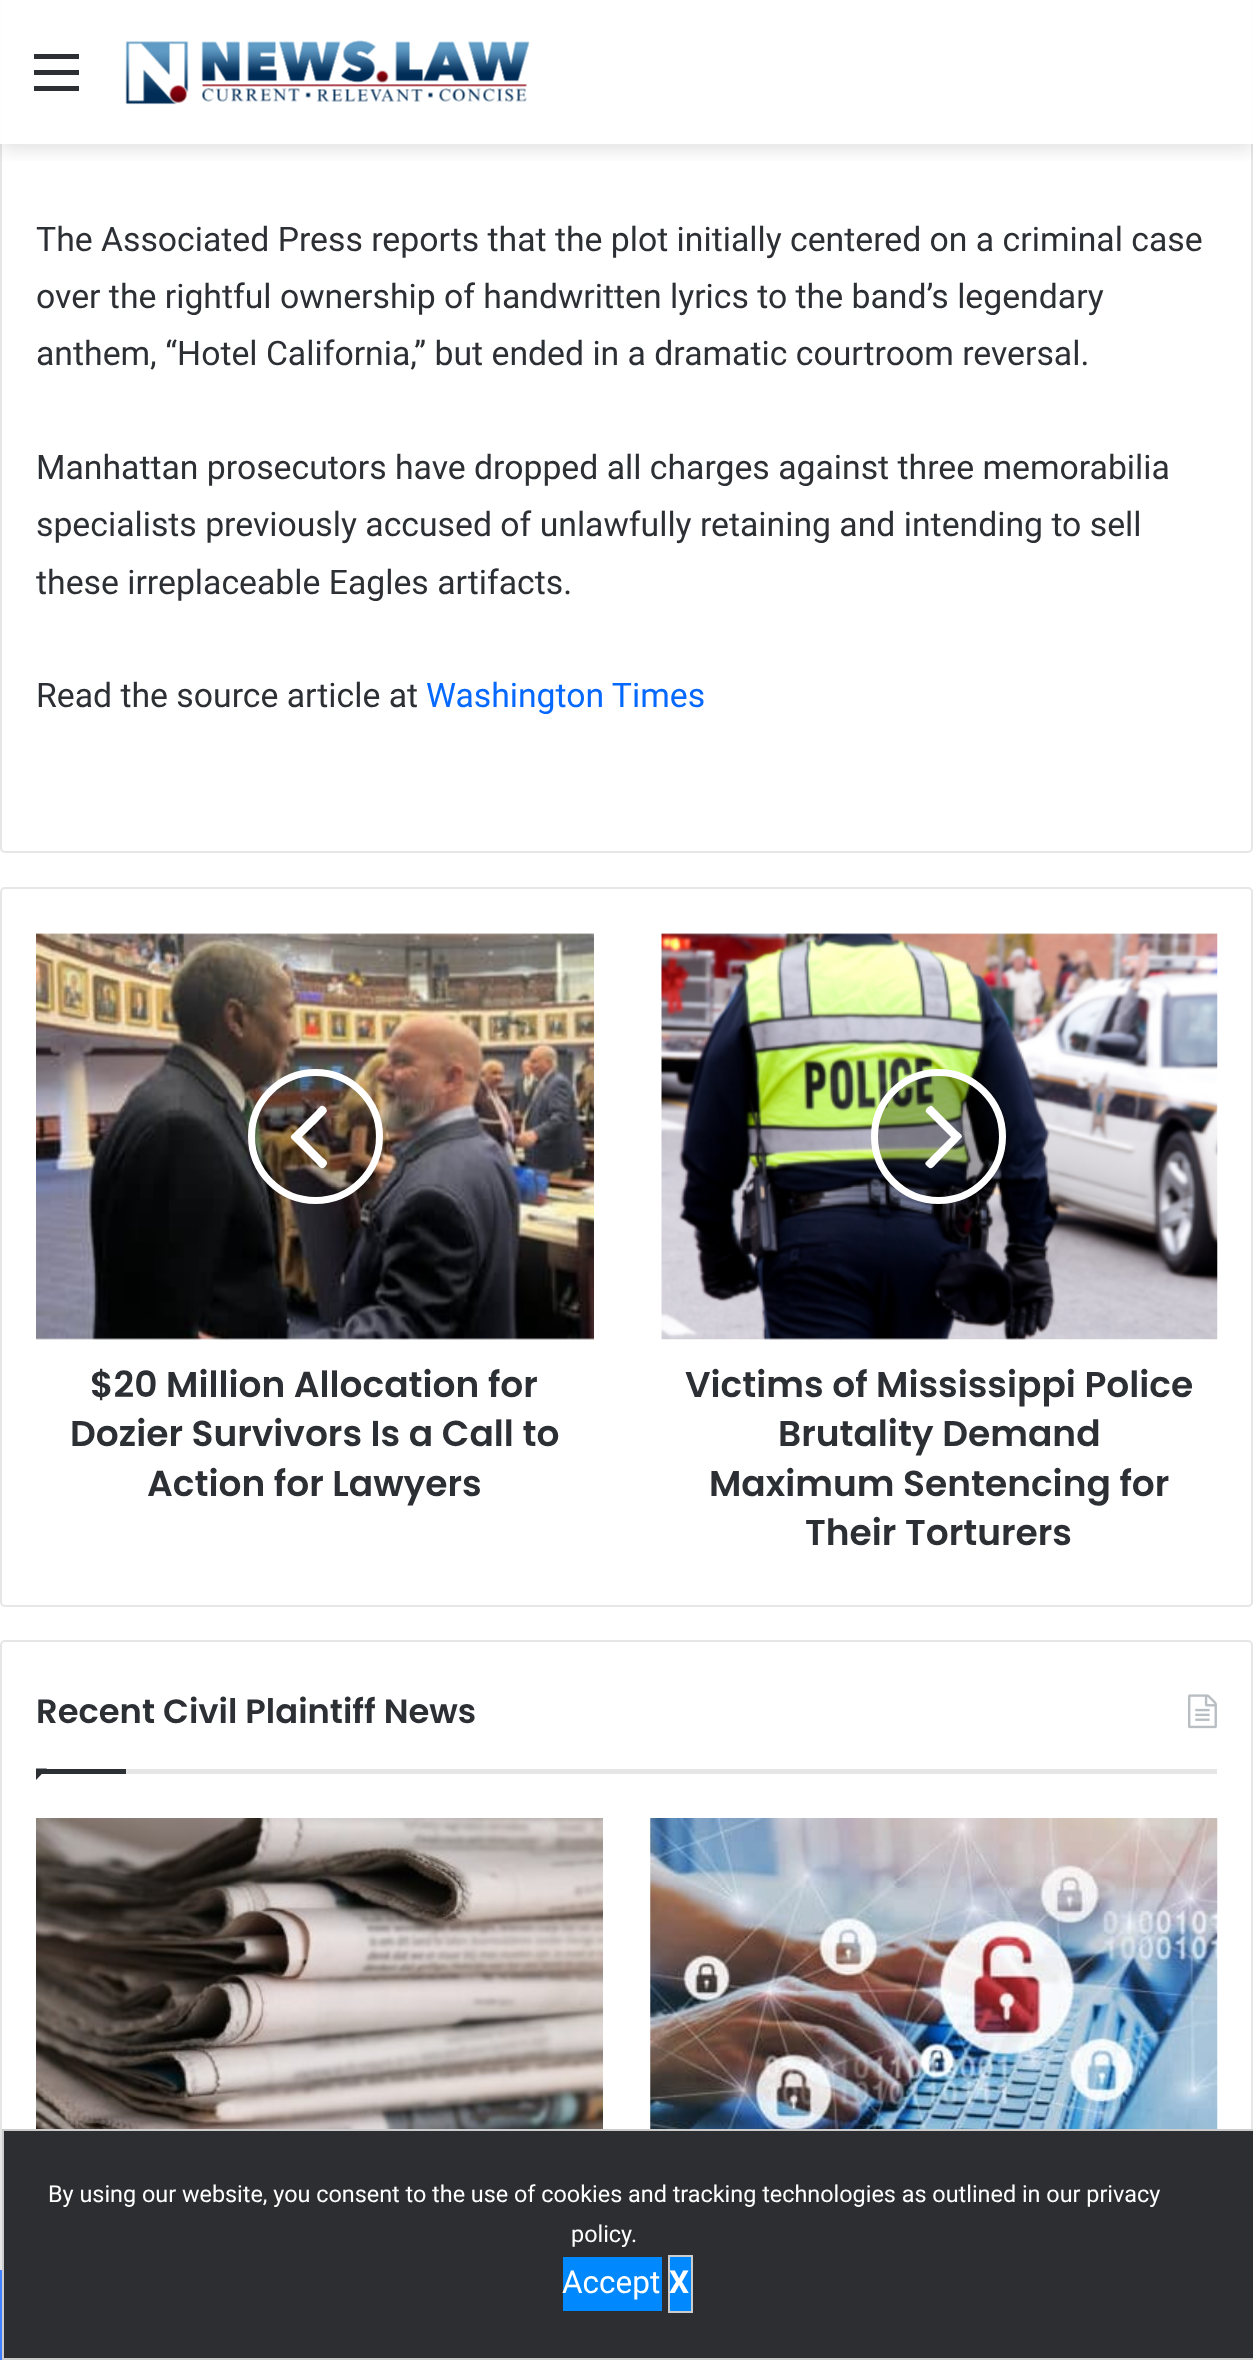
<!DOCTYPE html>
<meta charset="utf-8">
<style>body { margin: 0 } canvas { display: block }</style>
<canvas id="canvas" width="1253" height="2360"></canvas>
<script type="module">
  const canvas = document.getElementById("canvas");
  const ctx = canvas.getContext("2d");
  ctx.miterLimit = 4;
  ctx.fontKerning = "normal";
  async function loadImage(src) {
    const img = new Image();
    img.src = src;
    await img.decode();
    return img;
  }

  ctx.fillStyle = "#ffffff";
  ctx.fillRect(0, 0, 1253, 2360);
  ctx.beginPath();
  ctx.roundRect(1, -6, 1251, 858, 4);
  ctx.strokeStyle = "#e6e6e6";
  ctx.lineWidth = 2;
  ctx.stroke();
  ctx.save();
  ctx.beginPath();
  ctx.rect(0, 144, 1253, 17);
  ctx.clip();
  ctx.fillStyle = "rgba(99, 99, 99, 0.2)";
  ctx.filter = "blur(9px)";
  ctx.beginPath();
  ctx.rect(0, 5, 1253, 144);
  ctx.fill();
  ctx.filter = "none";
  ctx.restore();
  ctx.fillStyle = "rgba(255, 255, 255, 0.95)";
  ctx.fillRect(0, 0, 1253, 144);
  ctx.fillStyle = "#2c2f34";
  ctx.fillRect(34, 70, 45, 5);
  ctx.fillRect(34, 54, 45, 5);
  ctx.fillRect(34, 86, 45, 5);
  ctx.drawImage(await loadImage("img1.png"), 125, 40, 405, 65);
  ctx.font = "33.75px Roboto";
  ctx.fillText("The Associated Press reports that the plot initially centered on a criminal case", 36, 251);
  ctx.fillText("over the rightful ownership of handwritten lyrics to the band’s legendary", 36, 308);
  ctx.fillText("anthem, “Hotel California,” but ended in a dramatic courtroom reversal.", 36, 365);
  ctx.fillText("Manhattan prosecutors have dropped all charges against three memorabilia", 36, 479);
  ctx.fillText("specialists previously accused of unlawfully retaining and intending to sell", 36, 536);
  ctx.fillText("these irreplaceable Eagles artifacts.", 36, 594);
  ctx.fillText("Read the source article at", 36, 707);
  ctx.fillStyle = "#0669ff";
  ctx.fillText("Washington Times", 426, 707);
  ctx.beginPath();
  ctx.roundRect(1, 888, 1251, 718, 4);
  ctx.stroke();
  ctx.fillStyle = "#cdcdcd";
  ctx.fillRect(36, 934, 558, 405);
  ctx.drawImage(await loadImage("img2.png"), 36, 933, 558, 407);
  ctx.fillStyle = "rgba(0, 0, 0, 0.3)";
  ctx.beginPath();
  ctx.arc(315.5, 1136.5, 64, 0, Math.PI * 2);
  ctx.fill();
  ctx.strokeStyle = "#ffffff";
  ctx.lineWidth = 7;
  ctx.stroke();
  ctx.fillStyle = "#ffffff";
  ctx.beginPath();
  ctx.moveTo(327, 1111);
  ctx.bezierCurveTo(327, 1113, 305, 1134, 302, 1137);
  ctx.lineTo(323, 1158);
  ctx.bezierCurveTo(323, 1158, 328, 1161, 327, 1164);
  ctx.lineTo(325, 1167);
  ctx.bezierCurveTo(321, 1170, 320, 1167, 316, 1163);
  ctx.lineTo(296, 1143);
  ctx.bezierCurveTo(289, 1136, 289, 1138, 296, 1131);
  ctx.lineTo(316, 1111);
  ctx.bezierCurveTo(321, 1106, 321, 1104, 326, 1108);
  ctx.closePath();
  ctx.fill();
  ctx.font = "600 36px Poppins";
  ctx.fillStyle = "#2c2f34";
  ctx.fillText("$20 Million Allocation for", 90, 1397);
  ctx.fillText("Dozier Survivors Is a Call to", 70, 1446);
  ctx.fillText("Action for Lawyers", 147, 1496);
  ctx.fillStyle = "#cdcdcd";
  ctx.fillRect(662, 934, 555, 405);
  ctx.drawImage(await loadImage("img3.png"), 661, 933, 557, 407);
  ctx.fillStyle = "rgba(0, 0, 0, 0.3)";
  ctx.beginPath();
  ctx.arc(938.5, 1136.5, 64, 0, Math.PI * 2);
  ctx.fill();
  ctx.stroke();
  ctx.fillStyle = "#ffffff";
  ctx.beginPath();
  ctx.moveTo(962, 1137);
  ctx.lineTo(937, 1163);
  ctx.bezierCurveTo(933, 1167, 932, 1170, 928, 1167);
  ctx.lineTo(926, 1165);
  ctx.bezierCurveTo(925, 1164, 925, 1163, 926, 1162);
  ctx.lineTo(951, 1137);
  ctx.lineTo(926, 1112);
  ctx.bezierCurveTo(925, 1111, 926, 1110, 927, 1108);
  ctx.bezierCurveTo(929, 1107, 930, 1105, 932, 1106);
  ctx.lineTo(957, 1131);
  ctx.bezierCurveTo(959, 1133, 962, 1134, 962, 1137);
  ctx.closePath();
  ctx.fill();
  ctx.fillStyle = "#2c2f34";
  ctx.fillText("Victims of Mississippi Police", 685, 1397);
  ctx.fillText("Brutality Demand", 778, 1446);
  ctx.fillText("Maximum Sentencing for", 709, 1496);
  ctx.fillText("Their Torturers", 805, 1545);
  ctx.beginPath();
  ctx.roundRect(1, 1641, 1251, 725, 4);
  ctx.strokeStyle = "#e6e6e6";
  ctx.lineWidth = 2;
  ctx.stroke();
  ctx.fillStyle = "#e6e6e6";
  ctx.fillRect(126, 1769, 1091, 5);
  ctx.font = "600 33.75px Poppins";
  ctx.fillStyle = "#2c2f34";
  ctx.fillText("Recent Civil Plaintiff News", 36, 1723);
  ctx.drawImage(await loadImage("img4.png"), 1188, 1694, 29, 35);
  ctx.beginPath();
  ctx.moveTo(36, 1768.5);
  ctx.lineTo(47, 1768.5);
  ctx.lineTo(36, 1780);
  ctx.closePath();
  ctx.fill();
  ctx.fillRect(36, 1769, 90, 5);
  ctx.drawImage(await loadImage("img5.png"), 36, 1818, 567, 311);
  ctx.drawImage(await loadImage("img6.png"), 650, 1818, 568, 311);
  ctx.fillStyle = "#4080ff";
  ctx.fillRect(0, 2270, 2, 90);
  ctx.fillStyle = "#2c2e32";
  ctx.beginPath();
  ctx.rect(3, 2130, 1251, 229);
  ctx.fill();
  ctx.strokeStyle = "#cccccc";
  ctx.stroke();
  ctx.font = "23.4px Roboto";
  ctx.fillStyle = "#ffffff";
  ctx.fillText("By using our website, you consent to the use of cookies and tracking technologies as outlined in our privacy", 48, 2202);
  ctx.fillText("policy.", 571, 2242);
  ctx.fillStyle = "#0088ff";
  ctx.fillRect(563, 2257, 99, 54);
  ctx.font = "31.5px Roboto";
  ctx.fillStyle = "#ffffff";
  ctx.fillText("Accept", 562, 2293);
  ctx.fillStyle = "#0088ff";
  ctx.beginPath();
  ctx.rect(669, 2256, 23, 56);
  ctx.fill();
  ctx.stroke();
  ctx.font = "bold 31.5px Roboto";
  ctx.fillStyle = "#ffffff";
  ctx.fillText("X", 669, 2293);
</script>
